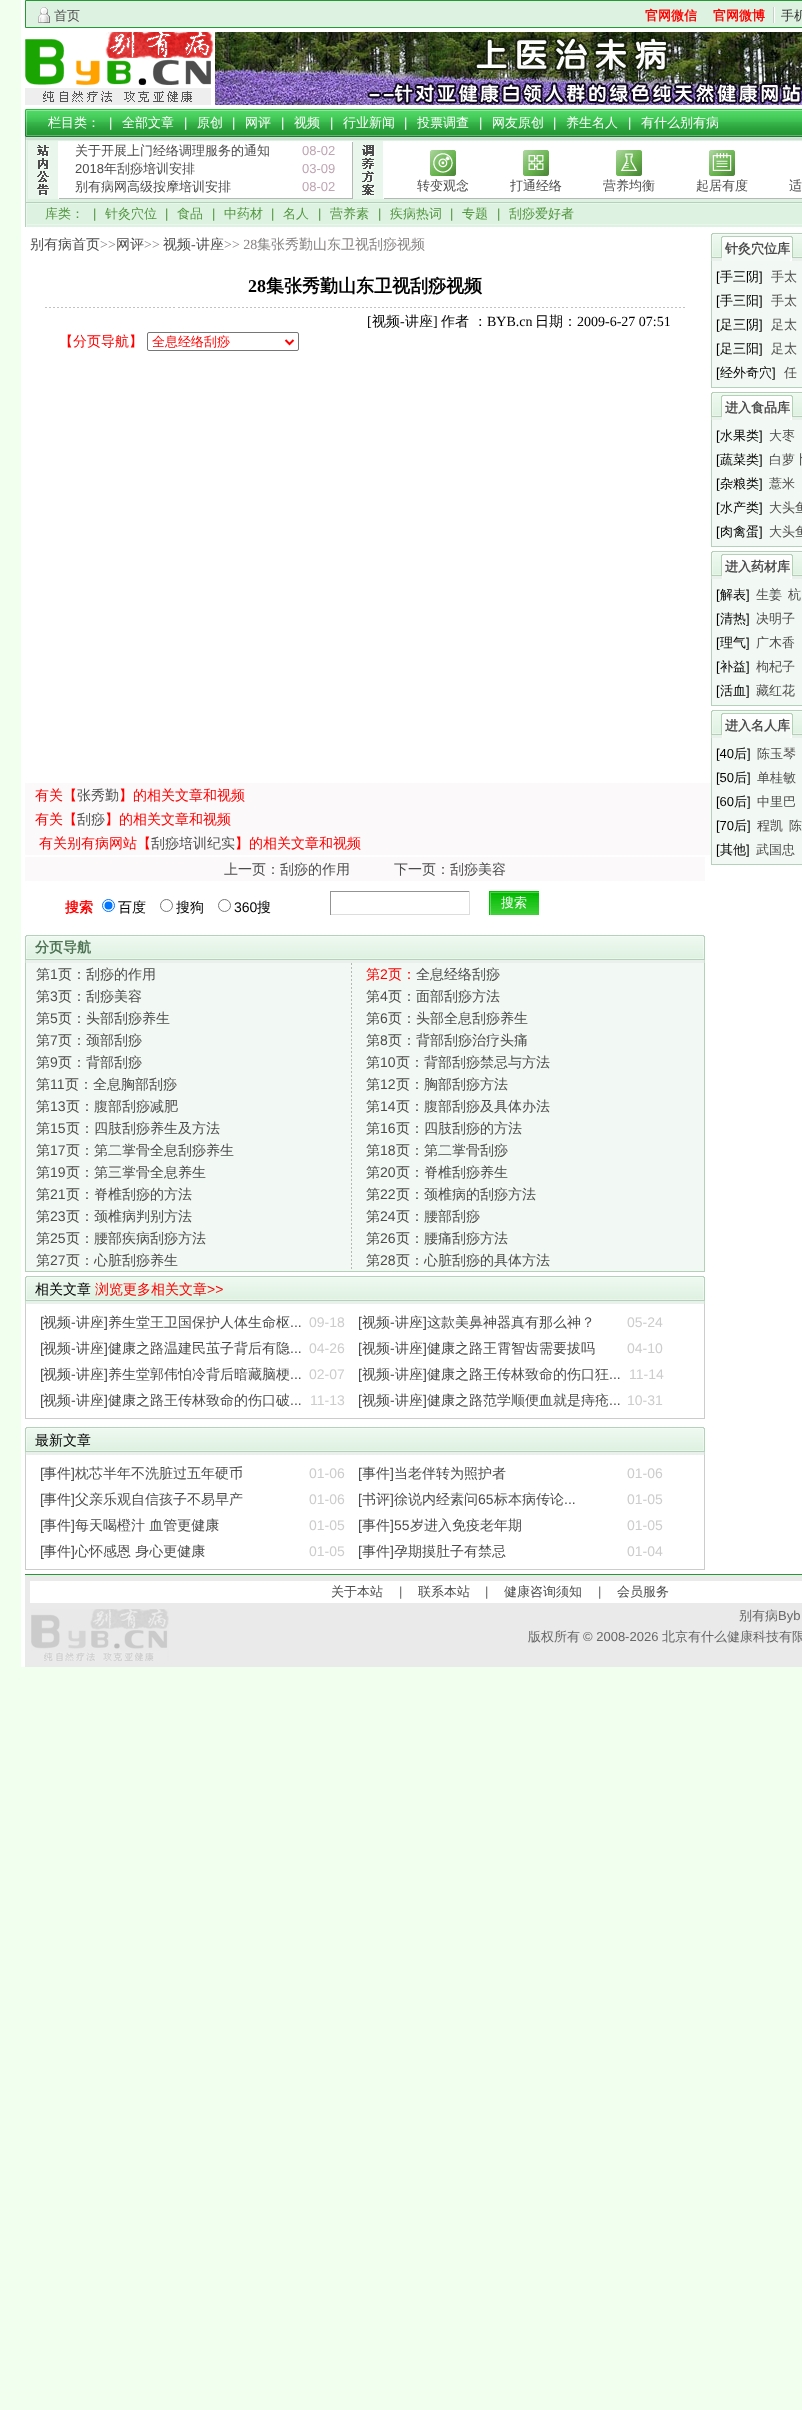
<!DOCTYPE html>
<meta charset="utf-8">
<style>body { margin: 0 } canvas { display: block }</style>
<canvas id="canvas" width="802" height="2410"></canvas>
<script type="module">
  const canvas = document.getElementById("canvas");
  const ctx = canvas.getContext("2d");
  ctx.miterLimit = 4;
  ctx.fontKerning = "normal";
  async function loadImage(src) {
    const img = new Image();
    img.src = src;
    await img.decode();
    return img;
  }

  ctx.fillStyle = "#f0ffee";
  ctx.fillRect(0, 0, 802, 2410);
  ctx.fillStyle = "#ffffff";
  ctx.fillRect(21, 0, 781, 1667);
  ctx.fillStyle = "#def2e1";
  ctx.beginPath();
  ctx.rect(25.5, 0.5, 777, 27);
  ctx.fill();
  ctx.strokeStyle = "#249934";
  ctx.stroke();
  ctx.drawImage(await loadImage("img1.png"), 38, 7, 12, 16);
  ctx.font = "500 13px WenQuanYi Zen Hei";
  ctx.fillStyle = "#4c4c4c";
  ctx.fillText("首页", 54, 20);
  ctx.font = "bold 13px WenQuanYi Zen Hei";
  ctx.fillStyle = "#ff0000";
  ctx.fillText("官网微信", 645, 20);
  ctx.fillText("官网微博", 713, 20);
  ctx.drawImage(await loadImage("img2.png"), 773, 7, 2, 16);
  ctx.font = "500 13px WenQuanYi Zen Hei";
  ctx.fillStyle = "#333333";
  ctx.fillText("手机", 781, 20);
  ctx.drawImage(await loadImage("img3.png"), 25, 32, 189, 73);
  ctx.drawImage(await loadImage("img4.png"), 215, 32, 587, 73);
  ctx.drawImage(await loadImage("img5.png"), 25, 109, 777, 28);
  ctx.fillStyle = "#ffffff";
  ctx.fillText("栏目类：", 48, 127);
  ctx.font = "13px Liberation Sans";
  ctx.fillText("|", 109, 127);
  ctx.font = "500 13px WenQuanYi Zen Hei";
  ctx.fillText("全部文章", 122, 127);
  ctx.font = "13px Liberation Sans";
  ctx.fillText("|", 184, 127);
  ctx.font = "500 13px WenQuanYi Zen Hei";
  ctx.fillText("原创", 197, 127);
  ctx.font = "13px Liberation Sans";
  ctx.fillText("|", 232, 127);
  ctx.font = "500 13px WenQuanYi Zen Hei";
  ctx.fillText("网评", 245, 127);
  ctx.font = "13px Liberation Sans";
  ctx.fillText("|", 281, 127);
  ctx.font = "500 13px WenQuanYi Zen Hei";
  ctx.fillText("视频", 294, 127);
  ctx.font = "13px Liberation Sans";
  ctx.fillText("|", 330, 127);
  ctx.font = "500 13px WenQuanYi Zen Hei";
  ctx.fillText("行业新闻", 343, 127);
  ctx.font = "13px Liberation Sans";
  ctx.fillText("|", 404, 127);
  ctx.font = "500 13px WenQuanYi Zen Hei";
  ctx.fillText("投票调查", 417, 127);
  ctx.font = "13px Liberation Sans";
  ctx.fillText("|", 479, 127);
  ctx.font = "500 13px WenQuanYi Zen Hei";
  ctx.fillText("网友原创", 492, 127);
  ctx.font = "13px Liberation Sans";
  ctx.fillText("|", 553, 127);
  ctx.font = "500 13px WenQuanYi Zen Hei";
  ctx.fillText("养生名人", 566, 127);
  ctx.font = "13px Liberation Sans";
  ctx.fillText("|", 628, 127);
  ctx.font = "500 13px WenQuanYi Zen Hei";
  ctx.fillText("有什么别有病", 641, 127);
  ctx.drawImage(await loadImage("img6.png"), 25, 137, 777, 90);
  ctx.fillStyle = "#4c4c4c";
  ctx.fillText("关于开展上门经络调理服务的通知", 75, 155);
  ctx.font = "13px Liberation Sans";
  ctx.fillStyle = "#bfa5b2";
  ctx.fillText("08-02", 302, 155);
  ctx.fillStyle = "#4c4c4c";
  ctx.fillText("2018", 75, 173);
  ctx.font = "500 13px WenQuanYi Zen Hei";
  ctx.fillText("年刮痧培训安排", 104, 173);
  ctx.font = "13px Liberation Sans";
  ctx.fillStyle = "#bfa5b2";
  ctx.fillText("03-09", 302, 173);
  ctx.font = "500 13px WenQuanYi Zen Hei";
  ctx.fillStyle = "#4c4c4c";
  ctx.fillText("别有病网高级按摩培训安排", 75, 191);
  ctx.font = "13px Liberation Sans";
  ctx.fillStyle = "#bfa5b2";
  ctx.fillText("08-02", 302, 191);
  ctx.drawImage(await loadImage("img7.png"), 430, 150, 26, 26);
  ctx.font = "500 13px WenQuanYi Zen Hei";
  ctx.fillStyle = "#4c4c4c";
  ctx.fillText("转变观念", 417, 190);
  ctx.drawImage(await loadImage("img8.png"), 523, 150, 26, 26);
  ctx.fillText("打通经络", 510, 190);
  ctx.drawImage(await loadImage("img9.png"), 616, 150, 26, 26);
  ctx.fillText("营养均衡", 603, 190);
  ctx.drawImage(await loadImage("img10.png"), 709, 150, 26, 26);
  ctx.fillText("起居有度", 696, 190);
  ctx.fillText("适", 789, 190);
  ctx.fillStyle = "#51953f";
  ctx.fillText("库类：", 45, 218);
  ctx.font = "13px Liberation Sans";
  ctx.fillText("|", 93, 218);
  ctx.font = "500 13px WenQuanYi Zen Hei";
  ctx.fillText("针灸穴位", 105, 218);
  ctx.font = "13px Liberation Sans";
  ctx.fillText("|", 165, 218);
  ctx.font = "500 13px WenQuanYi Zen Hei";
  ctx.fillText("食品", 177, 218);
  ctx.font = "13px Liberation Sans";
  ctx.fillText("|", 212, 218);
  ctx.font = "500 13px WenQuanYi Zen Hei";
  ctx.fillText("中药材", 224, 218);
  ctx.font = "13px Liberation Sans";
  ctx.fillText("|", 271, 218);
  ctx.font = "500 13px WenQuanYi Zen Hei";
  ctx.fillText("名人", 283, 218);
  ctx.font = "13px Liberation Sans";
  ctx.fillText("|", 318, 218);
  ctx.font = "500 13px WenQuanYi Zen Hei";
  ctx.fillText("营养素", 330, 218);
  ctx.font = "13px Liberation Sans";
  ctx.fillText("|", 378, 218);
  ctx.font = "500 13px WenQuanYi Zen Hei";
  ctx.fillText("疾病热词", 390, 218);
  ctx.font = "13px Liberation Sans";
  ctx.fillText("|", 450, 218);
  ctx.font = "500 13px WenQuanYi Zen Hei";
  ctx.fillText("专题", 462, 218);
  ctx.font = "13px Liberation Sans";
  ctx.fillText("|", 497, 218);
  ctx.font = "500 13px WenQuanYi Zen Hei";
  ctx.fillText("刮痧爱好者", 509, 218);
  ctx.font = "500 14px WenQuanYi Zen Hei";
  ctx.fillStyle = "#4c4c4c";
  ctx.fillText("别有病首页", 30, 249);
  ctx.font = "14px Liberation Serif";
  ctx.fillStyle = "#878282";
  ctx.fillText(">>", 100, 249);
  ctx.font = "500 14px WenQuanYi Zen Hei";
  ctx.fillStyle = "#4c4c4c";
  ctx.fillText("网评", 116, 249);
  ctx.font = "14px Liberation Serif";
  ctx.fillStyle = "#878282";
  ctx.fillText(">>", 144, 249);
  ctx.font = "500 14px WenQuanYi Zen Hei";
  ctx.fillStyle = "#4c4c4c";
  ctx.fillText("视频", 163, 249);
  ctx.font = "14px Liberation Serif";
  ctx.fillText("-", 191, 249);
  ctx.font = "500 14px WenQuanYi Zen Hei";
  ctx.fillText("讲座", 196, 249);
  ctx.font = "14px Liberation Serif";
  ctx.fillStyle = "#878282";
  ctx.fillText(">> 28", 224, 249);
  ctx.font = "500 14px WenQuanYi Zen Hei";
  ctx.fillText("集张秀勤山东卫视刮痧视频", 257, 249);
  ctx.font = "bold 18px Liberation Serif";
  ctx.fillStyle = "#000000";
  ctx.fillText("28", 248, 292);
  ctx.font = "bold 18px WenQuanYi Zen Hei";
  ctx.fillText("集张秀勤山东卫视刮痧视频", 266, 292);
  ctx.drawImage(await loadImage("img11.png"), 45, 307, 640, 1);
  ctx.font = "14px Liberation Serif";
  ctx.fillText("[", 367, 326);
  ctx.font = "500 14px WenQuanYi Zen Hei";
  ctx.fillText("视频", 372, 326);
  ctx.font = "14px Liberation Serif";
  ctx.fillText("-", 400, 326);
  ctx.font = "500 14px WenQuanYi Zen Hei";
  ctx.fillText("讲座", 405, 326);
  ctx.font = "14px Liberation Serif";
  ctx.fillText("]", 433, 326);
  ctx.font = "500 14px WenQuanYi Zen Hei";
  ctx.fillText("作者 ：", 441, 326);
  ctx.font = "14px Liberation Serif";
  ctx.fillText("BYB.cn", 487, 326);
  ctx.font = "500 14px WenQuanYi Zen Hei";
  ctx.fillText("日期：", 535, 326);
  ctx.font = "14px Liberation Serif";
  ctx.fillText("2009-6-27 07:51", 577, 326);
  ctx.font = "500 14px WenQuanYi Zen Hei";
  ctx.fillStyle = "#ff0000";
  ctx.fillText("【分页导航】", 59, 346);
  ctx.beginPath();
  ctx.roundRect(147.5, 332.5, 151, 18, 1.5);
  ctx.strokeStyle = "#767676";
  ctx.stroke();
  ctx.beginPath();
  ctx.moveTo(285.5, 340);
  ctx.lineTo(289.5, 344);
  ctx.lineTo(293.5, 340);
  ctx.strokeStyle = "#ff0000";
  ctx.lineWidth = 2;
  ctx.stroke();
  ctx.font = "500 13px WenQuanYi Zen Hei";
  ctx.fillText("全息经络刮痧", 152, 346);
  ctx.fillStyle = "#fbf9f9";
  ctx.fillRect(25, 783, 686, 72);
  ctx.font = "500 14px WenQuanYi Zen Hei";
  ctx.fillStyle = "#ff0000";
  ctx.fillText("有关【", 35, 800);
  ctx.fillStyle = "#4c4c4c";
  ctx.fillText("张秀勤", 77, 800);
  ctx.fillStyle = "#ff0000";
  ctx.fillText("】的相关文章和视频", 119, 800);
  ctx.fillText("有关【", 35, 824);
  ctx.fillStyle = "#4c4c4c";
  ctx.fillText("刮痧", 77, 824);
  ctx.fillStyle = "#ff0000";
  ctx.fillText("】的相关文章和视频", 105, 824);
  ctx.fillText("有关别有病网站【", 39, 848);
  ctx.fillStyle = "#4c4c4c";
  ctx.fillText("刮痧培训纪实", 151, 848);
  ctx.fillStyle = "#ff0000";
  ctx.fillText("】的相关文章和视频", 235, 848);
  ctx.fillStyle = "#fbf9f9";
  ctx.fillRect(25, 857, 680, 24);
  ctx.fillStyle = "#4c4c4c";
  ctx.fillText("上一页：刮痧的作用", 224, 874);
  ctx.fillText("下一页：刮痧美容", 394, 874);
  ctx.font = "bold 14px WenQuanYi Zen Hei";
  ctx.fillStyle = "#ff0000";
  ctx.fillText("搜索", 65, 912);
  ctx.beginPath();
  ctx.arc(108.5, 905.5, 6, 0, Math.PI * 2);
  ctx.strokeStyle = "#0075ff";
  ctx.lineWidth = 1;
  ctx.stroke();
  ctx.fillStyle = "#0075ff";
  ctx.beginPath();
  ctx.arc(108.5, 905.5, 4, 0, Math.PI * 2);
  ctx.fill();
  ctx.font = "500 14px WenQuanYi Zen Hei";
  ctx.fillStyle = "#000000";
  ctx.fillText("百度", 118, 912);
  ctx.beginPath();
  ctx.arc(166.5, 905.5, 6, 0, Math.PI * 2);
  ctx.strokeStyle = "#767676";
  ctx.stroke();
  ctx.fillText("搜狗", 176, 912);
  ctx.beginPath();
  ctx.arc(224.5, 905.5, 6, 0, Math.PI * 2);
  ctx.stroke();
  ctx.font = "14px Liberation Sans";
  ctx.fillText("360", 234, 912);
  ctx.font = "500 14px WenQuanYi Zen Hei";
  ctx.fillText("搜", 257, 912);
  ctx.fillStyle = "#939393";
  ctx.fillRect(330, 891, 140, 1);
  ctx.fillStyle = "#dddddd";
  ctx.fillRect(469, 891, 1, 24);
  ctx.fillRect(330, 914, 140, 1);
  ctx.fillStyle = "#939393";
  ctx.fillRect(330, 891, 1, 24);
  ctx.drawImage(await loadImage("img12.png"), 489, 891, 50, 24);
  ctx.font = "500 13px WenQuanYi Zen Hei";
  ctx.fillStyle = "#ffffff";
  ctx.fillText("搜索", 501, 907);
  ctx.drawImage(await loadImage("img13.png"), 25, 935, 680, 28);
  ctx.font = "bold 14px WenQuanYi Zen Hei";
  ctx.fillStyle = "#4d7353";
  ctx.fillText("分页导航", 35, 952);
  ctx.fillStyle = "#f2f8f3";
  ctx.fillRect(26, 963, 678, 308);
  ctx.drawImage(await loadImage("img14.png"), 351, 963, 1, 308);
  ctx.fillStyle = "#b4d1b8";
  ctx.fillRect(704, 963, 1, 309);
  ctx.fillRect(25, 1271, 680, 1);
  ctx.fillRect(25, 963, 1, 309);
  ctx.font = "500 14px WenQuanYi Zen Hei";
  ctx.fillStyle = "#4c4c4c";
  ctx.fillText("第", 36, 979);
  ctx.font = "14px Liberation Sans";
  ctx.fillText("1", 50, 979);
  ctx.font = "500 14px WenQuanYi Zen Hei";
  ctx.fillText("页：刮痧的作用", 58, 979);
  ctx.fillStyle = "#ff0000";
  ctx.fillText("第", 366, 979);
  ctx.font = "14px Liberation Sans";
  ctx.fillText("2", 380, 979);
  ctx.font = "500 14px WenQuanYi Zen Hei";
  ctx.fillText("页：", 388, 979);
  ctx.fillStyle = "#4c4c4c";
  ctx.fillText("全息经络刮痧", 416, 979);
  ctx.fillText("第", 36, 1001);
  ctx.font = "14px Liberation Sans";
  ctx.fillText("3", 50, 1001);
  ctx.font = "500 14px WenQuanYi Zen Hei";
  ctx.fillText("页：刮痧美容", 58, 1001);
  ctx.fillText("第", 366, 1001);
  ctx.font = "14px Liberation Sans";
  ctx.fillText("4", 380, 1001);
  ctx.font = "500 14px WenQuanYi Zen Hei";
  ctx.fillText("页：面部刮痧方法", 388, 1001);
  ctx.fillText("第", 36, 1023);
  ctx.font = "14px Liberation Sans";
  ctx.fillText("5", 50, 1023);
  ctx.font = "500 14px WenQuanYi Zen Hei";
  ctx.fillText("页：头部刮痧养生", 58, 1023);
  ctx.fillText("第", 366, 1023);
  ctx.font = "14px Liberation Sans";
  ctx.fillText("6", 380, 1023);
  ctx.font = "500 14px WenQuanYi Zen Hei";
  ctx.fillText("页：头部全息刮痧养生", 388, 1023);
  ctx.fillText("第", 36, 1045);
  ctx.font = "14px Liberation Sans";
  ctx.fillText("7", 50, 1045);
  ctx.font = "500 14px WenQuanYi Zen Hei";
  ctx.fillText("页：颈部刮痧", 58, 1045);
  ctx.fillText("第", 366, 1045);
  ctx.font = "14px Liberation Sans";
  ctx.fillText("8", 380, 1045);
  ctx.font = "500 14px WenQuanYi Zen Hei";
  ctx.fillText("页：背部刮痧治疗头痛", 388, 1045);
  ctx.fillText("第", 36, 1067);
  ctx.font = "14px Liberation Sans";
  ctx.fillText("9", 50, 1067);
  ctx.font = "500 14px WenQuanYi Zen Hei";
  ctx.fillText("页：背部刮痧", 58, 1067);
  ctx.fillText("第", 366, 1067);
  ctx.font = "14px Liberation Sans";
  ctx.fillText("10", 380, 1067);
  ctx.font = "500 14px WenQuanYi Zen Hei";
  ctx.fillText("页：背部刮痧禁忌与方法", 396, 1067);
  ctx.fillText("第", 36, 1089);
  ctx.font = "14px Liberation Sans";
  ctx.fillText("11", 50, 1089);
  ctx.font = "500 14px WenQuanYi Zen Hei";
  ctx.fillText("页：全息胸部刮痧", 65, 1089);
  ctx.fillText("第", 366, 1089);
  ctx.font = "14px Liberation Sans";
  ctx.fillText("12", 380, 1089);
  ctx.font = "500 14px WenQuanYi Zen Hei";
  ctx.fillText("页：胸部刮痧方法", 396, 1089);
  ctx.fillText("第", 36, 1111);
  ctx.font = "14px Liberation Sans";
  ctx.fillText("13", 50, 1111);
  ctx.font = "500 14px WenQuanYi Zen Hei";
  ctx.fillText("页：腹部刮痧减肥", 66, 1111);
  ctx.fillText("第", 366, 1111);
  ctx.font = "14px Liberation Sans";
  ctx.fillText("14", 380, 1111);
  ctx.font = "500 14px WenQuanYi Zen Hei";
  ctx.fillText("页：腹部刮痧及具体办法", 396, 1111);
  ctx.fillText("第", 36, 1133);
  ctx.font = "14px Liberation Sans";
  ctx.fillText("15", 50, 1133);
  ctx.font = "500 14px WenQuanYi Zen Hei";
  ctx.fillText("页：四肢刮痧养生及方法", 66, 1133);
  ctx.fillText("第", 366, 1133);
  ctx.font = "14px Liberation Sans";
  ctx.fillText("16", 380, 1133);
  ctx.font = "500 14px WenQuanYi Zen Hei";
  ctx.fillText("页：四肢刮痧的方法", 396, 1133);
  ctx.fillText("第", 36, 1155);
  ctx.font = "14px Liberation Sans";
  ctx.fillText("17", 50, 1155);
  ctx.font = "500 14px WenQuanYi Zen Hei";
  ctx.fillText("页：第二掌骨全息刮痧养生", 66, 1155);
  ctx.fillText("第", 366, 1155);
  ctx.font = "14px Liberation Sans";
  ctx.fillText("18", 380, 1155);
  ctx.font = "500 14px WenQuanYi Zen Hei";
  ctx.fillText("页：第二掌骨刮痧", 396, 1155);
  ctx.fillText("第", 36, 1177);
  ctx.font = "14px Liberation Sans";
  ctx.fillText("19", 50, 1177);
  ctx.font = "500 14px WenQuanYi Zen Hei";
  ctx.fillText("页：第三掌骨全息养生", 66, 1177);
  ctx.fillText("第", 366, 1177);
  ctx.font = "14px Liberation Sans";
  ctx.fillText("20", 380, 1177);
  ctx.font = "500 14px WenQuanYi Zen Hei";
  ctx.fillText("页：脊椎刮痧养生", 396, 1177);
  ctx.fillText("第", 36, 1199);
  ctx.font = "14px Liberation Sans";
  ctx.fillText("21", 50, 1199);
  ctx.font = "500 14px WenQuanYi Zen Hei";
  ctx.fillText("页：脊椎刮痧的方法", 66, 1199);
  ctx.fillText("第", 366, 1199);
  ctx.font = "14px Liberation Sans";
  ctx.fillText("22", 380, 1199);
  ctx.font = "500 14px WenQuanYi Zen Hei";
  ctx.fillText("页：颈椎病的刮痧方法", 396, 1199);
  ctx.fillText("第", 36, 1221);
  ctx.font = "14px Liberation Sans";
  ctx.fillText("23", 50, 1221);
  ctx.font = "500 14px WenQuanYi Zen Hei";
  ctx.fillText("页：颈椎病判别方法", 66, 1221);
  ctx.fillText("第", 366, 1221);
  ctx.font = "14px Liberation Sans";
  ctx.fillText("24", 380, 1221);
  ctx.font = "500 14px WenQuanYi Zen Hei";
  ctx.fillText("页：腰部刮痧", 396, 1221);
  ctx.fillText("第", 36, 1243);
  ctx.font = "14px Liberation Sans";
  ctx.fillText("25", 50, 1243);
  ctx.font = "500 14px WenQuanYi Zen Hei";
  ctx.fillText("页：腰部疾病刮痧方法", 66, 1243);
  ctx.fillText("第", 366, 1243);
  ctx.font = "14px Liberation Sans";
  ctx.fillText("26", 380, 1243);
  ctx.font = "500 14px WenQuanYi Zen Hei";
  ctx.fillText("页：腰痛刮痧方法", 396, 1243);
  ctx.fillText("第", 36, 1265);
  ctx.font = "14px Liberation Sans";
  ctx.fillText("27", 50, 1265);
  ctx.font = "500 14px WenQuanYi Zen Hei";
  ctx.fillText("页：心脏刮痧养生", 66, 1265);
  ctx.fillText("第", 366, 1265);
  ctx.font = "14px Liberation Sans";
  ctx.fillText("28", 380, 1265);
  ctx.font = "500 14px WenQuanYi Zen Hei";
  ctx.fillText("页：心脏刮痧的具体方法", 396, 1265);
  ctx.drawImage(await loadImage("img13.png"), 25, 1276, 680, 28);
  ctx.fillStyle = "#000000";
  ctx.fillText("相关文章", 35, 1294);
  ctx.fillStyle = "#ff0000";
  ctx.fillText("浏览更多相关文章", 95, 1294);
  ctx.font = "14px Liberation Sans";
  ctx.fillText(">>", 207, 1294);
  ctx.fillStyle = "#cccccc";
  ctx.fillRect(704, 1304, 1, 115);
  ctx.fillRect(25, 1418, 680, 1);
  ctx.fillRect(25, 1304, 1, 115);
  ctx.fillStyle = "#4c4c4c";
  ctx.fillText("[", 40, 1327);
  ctx.font = "500 14px WenQuanYi Zen Hei";
  ctx.fillText("视频", 43, 1327);
  ctx.font = "14px Liberation Sans";
  ctx.fillText("-", 71, 1327);
  ctx.font = "500 14px WenQuanYi Zen Hei";
  ctx.fillText("讲座", 76, 1327);
  ctx.font = "14px Liberation Sans";
  ctx.fillText("]", 104, 1327);
  ctx.font = "500 14px WenQuanYi Zen Hei";
  ctx.fillText("养生堂王卫国保护人体生命枢", 108, 1327);
  ctx.font = "14px Liberation Sans";
  ctx.fillText("...", 290, 1327);
  ctx.fillStyle = "#cccccc";
  ctx.fillText("09-18", 309, 1327);
  ctx.fillStyle = "#4c4c4c";
  ctx.fillText("[", 358, 1327);
  ctx.font = "500 14px WenQuanYi Zen Hei";
  ctx.fillText("视频", 362, 1327);
  ctx.font = "14px Liberation Sans";
  ctx.fillText("-", 390, 1327);
  ctx.font = "500 14px WenQuanYi Zen Hei";
  ctx.fillText("讲座", 395, 1327);
  ctx.font = "14px Liberation Sans";
  ctx.fillText("]", 423, 1327);
  ctx.font = "500 14px WenQuanYi Zen Hei";
  ctx.fillText("这款美鼻神器真有那么神？", 427, 1327);
  ctx.font = "14px Liberation Sans";
  ctx.fillStyle = "#cccccc";
  ctx.fillText("05-24", 627, 1327);
  ctx.fillStyle = "#4c4c4c";
  ctx.fillText("[", 40, 1353);
  ctx.font = "500 14px WenQuanYi Zen Hei";
  ctx.fillText("视频", 43, 1353);
  ctx.font = "14px Liberation Sans";
  ctx.fillText("-", 71, 1353);
  ctx.font = "500 14px WenQuanYi Zen Hei";
  ctx.fillText("讲座", 76, 1353);
  ctx.font = "14px Liberation Sans";
  ctx.fillText("]", 104, 1353);
  ctx.font = "500 14px WenQuanYi Zen Hei";
  ctx.fillText("健康之路温建民茧子背后有隐", 108, 1353);
  ctx.font = "14px Liberation Sans";
  ctx.fillText("...", 290, 1353);
  ctx.fillStyle = "#cccccc";
  ctx.fillText("04-26", 309, 1353);
  ctx.fillStyle = "#4c4c4c";
  ctx.fillText("[", 358, 1353);
  ctx.font = "500 14px WenQuanYi Zen Hei";
  ctx.fillText("视频", 362, 1353);
  ctx.font = "14px Liberation Sans";
  ctx.fillText("-", 390, 1353);
  ctx.font = "500 14px WenQuanYi Zen Hei";
  ctx.fillText("讲座", 395, 1353);
  ctx.font = "14px Liberation Sans";
  ctx.fillText("]", 423, 1353);
  ctx.font = "500 14px WenQuanYi Zen Hei";
  ctx.fillText("健康之路王霄智齿需要拔吗", 427, 1353);
  ctx.font = "14px Liberation Sans";
  ctx.fillStyle = "#cccccc";
  ctx.fillText("04-10", 627, 1353);
  ctx.fillStyle = "#4c4c4c";
  ctx.fillText("[", 40, 1379);
  ctx.font = "500 14px WenQuanYi Zen Hei";
  ctx.fillText("视频", 43, 1379);
  ctx.font = "14px Liberation Sans";
  ctx.fillText("-", 71, 1379);
  ctx.font = "500 14px WenQuanYi Zen Hei";
  ctx.fillText("讲座", 76, 1379);
  ctx.font = "14px Liberation Sans";
  ctx.fillText("]", 104, 1379);
  ctx.font = "500 14px WenQuanYi Zen Hei";
  ctx.fillText("养生堂郭伟怕冷背后暗藏脑梗", 108, 1379);
  ctx.font = "14px Liberation Sans";
  ctx.fillText("...", 290, 1379);
  ctx.fillStyle = "#cccccc";
  ctx.fillText("02-07", 309, 1379);
  ctx.fillStyle = "#4c4c4c";
  ctx.fillText("[", 358, 1379);
  ctx.font = "500 14px WenQuanYi Zen Hei";
  ctx.fillText("视频", 362, 1379);
  ctx.font = "14px Liberation Sans";
  ctx.fillText("-", 390, 1379);
  ctx.font = "500 14px WenQuanYi Zen Hei";
  ctx.fillText("讲座", 395, 1379);
  ctx.font = "14px Liberation Sans";
  ctx.fillText("]", 423, 1379);
  ctx.font = "500 14px WenQuanYi Zen Hei";
  ctx.fillText("健康之路王传林致命的伤口狂", 427, 1379);
  ctx.font = "14px Liberation Sans";
  ctx.fillText("...", 609, 1379);
  ctx.fillStyle = "#cccccc";
  ctx.fillText("11-14", 629, 1379);
  ctx.fillStyle = "#4c4c4c";
  ctx.fillText("[", 40, 1405);
  ctx.font = "500 14px WenQuanYi Zen Hei";
  ctx.fillText("视频", 43, 1405);
  ctx.font = "14px Liberation Sans";
  ctx.fillText("-", 71, 1405);
  ctx.font = "500 14px WenQuanYi Zen Hei";
  ctx.fillText("讲座", 76, 1405);
  ctx.font = "14px Liberation Sans";
  ctx.fillText("]", 104, 1405);
  ctx.font = "500 14px WenQuanYi Zen Hei";
  ctx.fillText("健康之路王传林致命的伤口破", 108, 1405);
  ctx.font = "14px Liberation Sans";
  ctx.fillText("...", 290, 1405);
  ctx.fillStyle = "#cccccc";
  ctx.fillText("11-13", 310, 1405);
  ctx.fillStyle = "#4c4c4c";
  ctx.fillText("[", 358, 1405);
  ctx.font = "500 14px WenQuanYi Zen Hei";
  ctx.fillText("视频", 362, 1405);
  ctx.font = "14px Liberation Sans";
  ctx.fillText("-", 390, 1405);
  ctx.font = "500 14px WenQuanYi Zen Hei";
  ctx.fillText("讲座", 395, 1405);
  ctx.font = "14px Liberation Sans";
  ctx.fillText("]", 423, 1405);
  ctx.font = "500 14px WenQuanYi Zen Hei";
  ctx.fillText("健康之路范学顺便血就是痔疮", 427, 1405);
  ctx.font = "14px Liberation Sans";
  ctx.fillText("...", 609, 1405);
  ctx.fillStyle = "#cccccc";
  ctx.fillText("10-31", 627, 1405);
  ctx.drawImage(await loadImage("img13.png"), 25, 1427, 680, 28);
  ctx.font = "500 14px WenQuanYi Zen Hei";
  ctx.fillStyle = "#000000";
  ctx.fillText("最新文章", 35, 1445);
  ctx.fillStyle = "#cccccc";
  ctx.fillRect(704, 1455, 1, 115);
  ctx.fillRect(25, 1569, 680, 1);
  ctx.fillRect(25, 1455, 1, 115);
  ctx.font = "14px Liberation Sans";
  ctx.fillStyle = "#4c4c4c";
  ctx.fillText("[", 40, 1478);
  ctx.font = "500 14px WenQuanYi Zen Hei";
  ctx.fillText("事件", 43, 1478);
  ctx.font = "14px Liberation Sans";
  ctx.fillText("]", 71, 1478);
  ctx.font = "500 14px WenQuanYi Zen Hei";
  ctx.fillText("枕芯半年不洗脏过五年硬币", 75, 1478);
  ctx.font = "14px Liberation Sans";
  ctx.fillStyle = "#cccccc";
  ctx.fillText("01-06", 309, 1478);
  ctx.fillStyle = "#4c4c4c";
  ctx.fillText("[", 358, 1478);
  ctx.font = "500 14px WenQuanYi Zen Hei";
  ctx.fillText("事件", 362, 1478);
  ctx.font = "14px Liberation Sans";
  ctx.fillText("]", 390, 1478);
  ctx.font = "500 14px WenQuanYi Zen Hei";
  ctx.fillText("当老伴转为照护者", 394, 1478);
  ctx.font = "14px Liberation Sans";
  ctx.fillStyle = "#cccccc";
  ctx.fillText("01-06", 627, 1478);
  ctx.fillStyle = "#4c4c4c";
  ctx.fillText("[", 40, 1504);
  ctx.font = "500 14px WenQuanYi Zen Hei";
  ctx.fillText("事件", 43, 1504);
  ctx.font = "14px Liberation Sans";
  ctx.fillText("]", 71, 1504);
  ctx.font = "500 14px WenQuanYi Zen Hei";
  ctx.fillText("父亲乐观自信孩子不易早产", 75, 1504);
  ctx.font = "14px Liberation Sans";
  ctx.fillStyle = "#cccccc";
  ctx.fillText("01-06", 309, 1504);
  ctx.fillStyle = "#4c4c4c";
  ctx.fillText("[", 358, 1504);
  ctx.font = "500 14px WenQuanYi Zen Hei";
  ctx.fillText("书评", 362, 1504);
  ctx.font = "14px Liberation Sans";
  ctx.fillText("]", 390, 1504);
  ctx.font = "500 14px WenQuanYi Zen Hei";
  ctx.fillText("徐说内经素问", 394, 1504);
  ctx.font = "14px Liberation Sans";
  ctx.fillText("65", 478, 1504);
  ctx.font = "500 14px WenQuanYi Zen Hei";
  ctx.fillText("标本病传论", 494, 1504);
  ctx.font = "14px Liberation Sans";
  ctx.fillText("...", 564, 1504);
  ctx.fillStyle = "#cccccc";
  ctx.fillText("01-05", 627, 1504);
  ctx.fillStyle = "#4c4c4c";
  ctx.fillText("[", 40, 1530);
  ctx.font = "500 14px WenQuanYi Zen Hei";
  ctx.fillText("事件", 43, 1530);
  ctx.font = "14px Liberation Sans";
  ctx.fillText("]", 71, 1530);
  ctx.font = "500 14px WenQuanYi Zen Hei";
  ctx.fillText("每天喝橙汁 血管更健康", 75, 1530);
  ctx.font = "14px Liberation Sans";
  ctx.fillStyle = "#cccccc";
  ctx.fillText("01-05", 309, 1530);
  ctx.fillStyle = "#4c4c4c";
  ctx.fillText("[", 358, 1530);
  ctx.font = "500 14px WenQuanYi Zen Hei";
  ctx.fillText("事件", 362, 1530);
  ctx.font = "14px Liberation Sans";
  ctx.fillText("]55", 390, 1530);
  ctx.font = "500 14px WenQuanYi Zen Hei";
  ctx.fillText("岁进入免疫老年期", 410, 1530);
  ctx.font = "14px Liberation Sans";
  ctx.fillStyle = "#cccccc";
  ctx.fillText("01-05", 627, 1530);
  ctx.fillStyle = "#4c4c4c";
  ctx.fillText("[", 40, 1556);
  ctx.font = "500 14px WenQuanYi Zen Hei";
  ctx.fillText("事件", 43, 1556);
  ctx.font = "14px Liberation Sans";
  ctx.fillText("]", 71, 1556);
  ctx.font = "500 14px WenQuanYi Zen Hei";
  ctx.fillText("心怀感恩 身心更健康", 75, 1556);
  ctx.font = "14px Liberation Sans";
  ctx.fillStyle = "#cccccc";
  ctx.fillText("01-05", 309, 1556);
  ctx.fillStyle = "#4c4c4c";
  ctx.fillText("[", 358, 1556);
  ctx.font = "500 14px WenQuanYi Zen Hei";
  ctx.fillText("事件", 362, 1556);
  ctx.font = "14px Liberation Sans";
  ctx.fillText("]", 390, 1556);
  ctx.font = "500 14px WenQuanYi Zen Hei";
  ctx.fillText("孕期摸肚子有禁忌", 394, 1556);
  ctx.font = "14px Liberation Sans";
  ctx.fillStyle = "#cccccc";
  ctx.fillText("01-04", 627, 1556);
  ctx.drawImage(await loadImage("img15.png"), 711, 233, 91, 28);
  ctx.drawImage(await loadImage("img16.png"), 721, 236, 72, 25);
  ctx.font = "bold 13px WenQuanYi Zen Hei";
  ctx.fillStyle = "#4c4c4c";
  ctx.fillText("针灸穴位库", 725, 253);
  ctx.fillStyle = "#f2f8f3";
  ctx.fillRect(712, 261, 90, 126);
  ctx.fillStyle = "#b4d1b9";
  ctx.fillRect(711, 387, 91, 1);
  ctx.fillRect(711, 261, 1, 127);
  ctx.font = "13px Liberation Sans";
  ctx.fillStyle = "#000000";
  ctx.fillText("[", 716, 281);
  ctx.font = "500 13px WenQuanYi Zen Hei";
  ctx.fillText("手三阴", 720, 281);
  ctx.font = "13px Liberation Sans";
  ctx.fillText("]", 759, 281);
  ctx.font = "500 13px WenQuanYi Zen Hei";
  ctx.fillStyle = "#4c4c4c";
  ctx.fillText("手太", 771, 281);
  ctx.font = "13px Liberation Sans";
  ctx.fillStyle = "#000000";
  ctx.fillText("[", 716, 305);
  ctx.font = "500 13px WenQuanYi Zen Hei";
  ctx.fillText("手三阳", 720, 305);
  ctx.font = "13px Liberation Sans";
  ctx.fillText("]", 759, 305);
  ctx.font = "500 13px WenQuanYi Zen Hei";
  ctx.fillStyle = "#4c4c4c";
  ctx.fillText("手太", 771, 305);
  ctx.font = "13px Liberation Sans";
  ctx.fillStyle = "#000000";
  ctx.fillText("[", 716, 329);
  ctx.font = "500 13px WenQuanYi Zen Hei";
  ctx.fillText("足三阴", 720, 329);
  ctx.font = "13px Liberation Sans";
  ctx.fillText("]", 759, 329);
  ctx.font = "500 13px WenQuanYi Zen Hei";
  ctx.fillStyle = "#4c4c4c";
  ctx.fillText("足太", 771, 329);
  ctx.font = "13px Liberation Sans";
  ctx.fillStyle = "#000000";
  ctx.fillText("[", 716, 353);
  ctx.font = "500 13px WenQuanYi Zen Hei";
  ctx.fillText("足三阳", 720, 353);
  ctx.font = "13px Liberation Sans";
  ctx.fillText("]", 759, 353);
  ctx.font = "500 13px WenQuanYi Zen Hei";
  ctx.fillStyle = "#4c4c4c";
  ctx.fillText("足太", 771, 353);
  ctx.font = "13px Liberation Sans";
  ctx.fillStyle = "#000000";
  ctx.fillText("[", 716, 377);
  ctx.font = "500 13px WenQuanYi Zen Hei";
  ctx.fillText("经外奇穴", 720, 377);
  ctx.font = "13px Liberation Sans";
  ctx.fillText("]", 772, 377);
  ctx.font = "500 13px WenQuanYi Zen Hei";
  ctx.fillStyle = "#4c4c4c";
  ctx.fillText("任", 784, 377);
  ctx.drawImage(await loadImage("img15.png"), 711, 392, 91, 28);
  ctx.drawImage(await loadImage("img16.png"), 721, 395, 72, 25);
  ctx.font = "bold 13px WenQuanYi Zen Hei";
  ctx.fillText("进入食品库", 725, 412);
  ctx.fillStyle = "#f2f8f3";
  ctx.fillRect(712, 420, 90, 126);
  ctx.fillStyle = "#b4d1b9";
  ctx.fillRect(711, 546, 91, 1);
  ctx.fillRect(711, 420, 1, 127);
  ctx.font = "13px Liberation Sans";
  ctx.fillStyle = "#000000";
  ctx.fillText("[", 716, 440);
  ctx.font = "500 13px WenQuanYi Zen Hei";
  ctx.fillText("水果类", 720, 440);
  ctx.font = "13px Liberation Sans";
  ctx.fillText("]", 759, 440);
  ctx.font = "500 13px WenQuanYi Zen Hei";
  ctx.fillStyle = "#4c4c4c";
  ctx.fillText("大枣", 769, 440);
  ctx.font = "13px Liberation Sans";
  ctx.fillStyle = "#000000";
  ctx.fillText("[", 716, 464);
  ctx.font = "500 13px WenQuanYi Zen Hei";
  ctx.fillText("蔬菜类", 720, 464);
  ctx.font = "13px Liberation Sans";
  ctx.fillText("]", 759, 464);
  ctx.font = "500 13px WenQuanYi Zen Hei";
  ctx.fillStyle = "#4c4c4c";
  ctx.fillText("白萝卜", 769, 464);
  ctx.font = "13px Liberation Sans";
  ctx.fillStyle = "#000000";
  ctx.fillText("[", 716, 488);
  ctx.font = "500 13px WenQuanYi Zen Hei";
  ctx.fillText("杂粮类", 720, 488);
  ctx.font = "13px Liberation Sans";
  ctx.fillText("]", 759, 488);
  ctx.font = "500 13px WenQuanYi Zen Hei";
  ctx.fillStyle = "#4c4c4c";
  ctx.fillText("薏米", 769, 488);
  ctx.font = "13px Liberation Sans";
  ctx.fillStyle = "#000000";
  ctx.fillText("[", 716, 512);
  ctx.font = "500 13px WenQuanYi Zen Hei";
  ctx.fillText("水产类", 720, 512);
  ctx.font = "13px Liberation Sans";
  ctx.fillText("]", 759, 512);
  ctx.font = "500 13px WenQuanYi Zen Hei";
  ctx.fillStyle = "#4c4c4c";
  ctx.fillText("大头鱼", 769, 512);
  ctx.font = "13px Liberation Sans";
  ctx.fillStyle = "#000000";
  ctx.fillText("[", 716, 536);
  ctx.font = "500 13px WenQuanYi Zen Hei";
  ctx.fillText("肉禽蛋", 720, 536);
  ctx.font = "13px Liberation Sans";
  ctx.fillText("]", 759, 536);
  ctx.font = "500 13px WenQuanYi Zen Hei";
  ctx.fillStyle = "#4c4c4c";
  ctx.fillText("大头鱼", 769, 536);
  ctx.drawImage(await loadImage("img15.png"), 711, 551, 91, 28);
  ctx.drawImage(await loadImage("img16.png"), 721, 554, 72, 25);
  ctx.font = "bold 13px WenQuanYi Zen Hei";
  ctx.fillText("进入药材库", 725, 571);
  ctx.fillStyle = "#f2f8f3";
  ctx.fillRect(712, 579, 90, 126);
  ctx.fillStyle = "#b4d1b9";
  ctx.fillRect(711, 705, 91, 1);
  ctx.fillRect(711, 579, 1, 127);
  ctx.font = "13px Liberation Sans";
  ctx.fillStyle = "#000000";
  ctx.fillText("[", 716, 599);
  ctx.font = "500 13px WenQuanYi Zen Hei";
  ctx.fillText("解表", 720, 599);
  ctx.font = "13px Liberation Sans";
  ctx.fillText("]", 746, 599);
  ctx.font = "500 13px WenQuanYi Zen Hei";
  ctx.fillStyle = "#4c4c4c";
  ctx.fillText("生姜", 756, 599);
  ctx.fillText("杭", 788, 599);
  ctx.font = "13px Liberation Sans";
  ctx.fillStyle = "#000000";
  ctx.fillText("[", 716, 623);
  ctx.font = "500 13px WenQuanYi Zen Hei";
  ctx.fillText("清热", 720, 623);
  ctx.font = "13px Liberation Sans";
  ctx.fillText("]", 746, 623);
  ctx.font = "500 13px WenQuanYi Zen Hei";
  ctx.fillStyle = "#4c4c4c";
  ctx.fillText("决明子", 756, 623);
  ctx.font = "13px Liberation Sans";
  ctx.fillStyle = "#000000";
  ctx.fillText("[", 716, 647);
  ctx.font = "500 13px WenQuanYi Zen Hei";
  ctx.fillText("理气", 720, 647);
  ctx.font = "13px Liberation Sans";
  ctx.fillText("]", 746, 647);
  ctx.font = "500 13px WenQuanYi Zen Hei";
  ctx.fillStyle = "#4c4c4c";
  ctx.fillText("广木香", 756, 647);
  ctx.font = "13px Liberation Sans";
  ctx.fillStyle = "#000000";
  ctx.fillText("[", 716, 671);
  ctx.font = "500 13px WenQuanYi Zen Hei";
  ctx.fillText("补益", 720, 671);
  ctx.font = "13px Liberation Sans";
  ctx.fillText("]", 746, 671);
  ctx.font = "500 13px WenQuanYi Zen Hei";
  ctx.fillStyle = "#4c4c4c";
  ctx.fillText("枸杞子", 756, 671);
  ctx.font = "13px Liberation Sans";
  ctx.fillStyle = "#000000";
  ctx.fillText("[", 716, 695);
  ctx.font = "500 13px WenQuanYi Zen Hei";
  ctx.fillText("活血", 720, 695);
  ctx.font = "13px Liberation Sans";
  ctx.fillText("]", 746, 695);
  ctx.font = "500 13px WenQuanYi Zen Hei";
  ctx.fillStyle = "#4c4c4c";
  ctx.fillText("藏红花", 756, 695);
  ctx.drawImage(await loadImage("img15.png"), 711, 710, 91, 28);
  ctx.drawImage(await loadImage("img16.png"), 721, 713, 72, 25);
  ctx.font = "bold 13px WenQuanYi Zen Hei";
  ctx.fillText("进入名人库", 725, 730);
  ctx.fillStyle = "#f2f8f3";
  ctx.fillRect(712, 738, 90, 126);
  ctx.fillStyle = "#b4d1b9";
  ctx.fillRect(711, 864, 91, 1);
  ctx.fillRect(711, 738, 1, 127);
  ctx.font = "13px Liberation Sans";
  ctx.fillStyle = "#000000";
  ctx.fillText("[40", 716, 758);
  ctx.font = "500 13px WenQuanYi Zen Hei";
  ctx.fillText("后", 734, 758);
  ctx.font = "13px Liberation Sans";
  ctx.fillText("]", 747, 758);
  ctx.font = "500 13px WenQuanYi Zen Hei";
  ctx.fillStyle = "#4c4c4c";
  ctx.fillText("陈玉琴", 757, 758);
  ctx.font = "13px Liberation Sans";
  ctx.fillStyle = "#000000";
  ctx.fillText("[50", 716, 782);
  ctx.font = "500 13px WenQuanYi Zen Hei";
  ctx.fillText("后", 734, 782);
  ctx.font = "13px Liberation Sans";
  ctx.fillText("]", 747, 782);
  ctx.font = "500 13px WenQuanYi Zen Hei";
  ctx.fillStyle = "#4c4c4c";
  ctx.fillText("单桂敏", 757, 782);
  ctx.font = "13px Liberation Sans";
  ctx.fillStyle = "#000000";
  ctx.fillText("[60", 716, 806);
  ctx.font = "500 13px WenQuanYi Zen Hei";
  ctx.fillText("后", 734, 806);
  ctx.font = "13px Liberation Sans";
  ctx.fillText("]", 747, 806);
  ctx.font = "500 13px WenQuanYi Zen Hei";
  ctx.fillStyle = "#4c4c4c";
  ctx.fillText("中里巴", 757, 806);
  ctx.font = "13px Liberation Sans";
  ctx.fillStyle = "#000000";
  ctx.fillText("[70", 716, 830);
  ctx.font = "500 13px WenQuanYi Zen Hei";
  ctx.fillText("后", 734, 830);
  ctx.font = "13px Liberation Sans";
  ctx.fillText("]", 747, 830);
  ctx.font = "500 13px WenQuanYi Zen Hei";
  ctx.fillStyle = "#4c4c4c";
  ctx.fillText("程凯", 757, 830);
  ctx.fillText("陈", 789, 830);
  ctx.font = "13px Liberation Sans";
  ctx.fillStyle = "#000000";
  ctx.fillText("[", 716, 854);
  ctx.font = "500 13px WenQuanYi Zen Hei";
  ctx.fillText("其他", 720, 854);
  ctx.font = "13px Liberation Sans";
  ctx.fillText("]", 746, 854);
  ctx.font = "500 13px WenQuanYi Zen Hei";
  ctx.fillStyle = "#4c4c4c";
  ctx.fillText("武国忠", 756, 854);
  ctx.fillStyle = "#eaeaea";
  ctx.fillRect(25, 1575, 777, 92);
  ctx.drawImage(await loadImage("img17.png"), 31, 1609, 138, 52);
  ctx.fillStyle = "#249934";
  ctx.fillRect(25, 1574, 777, 1);
  ctx.fillStyle = "#ffffff";
  ctx.fillRect(30, 1581, 772, 22);
  ctx.fillStyle = "#4c4c4c";
  ctx.fillText("关于本站", 331, 1596);
  ctx.font = "13px Liberation Sans";
  ctx.fillStyle = "#666666";
  ctx.fillText("|", 399, 1596);
  ctx.font = "500 13px WenQuanYi Zen Hei";
  ctx.fillStyle = "#4c4c4c";
  ctx.fillText("联系本站", 418, 1596);
  ctx.font = "13px Liberation Sans";
  ctx.fillStyle = "#666666";
  ctx.fillText("|", 485, 1596);
  ctx.font = "500 13px WenQuanYi Zen Hei";
  ctx.fillStyle = "#4c4c4c";
  ctx.fillText("健康咨询须知", 504, 1596);
  ctx.font = "13px Liberation Sans";
  ctx.fillStyle = "#666666";
  ctx.fillText("|", 598, 1596);
  ctx.font = "500 13px WenQuanYi Zen Hei";
  ctx.fillStyle = "#4c4c4c";
  ctx.fillText("会员服务", 617, 1596);
  ctx.fillStyle = "#666666";
  ctx.fillText("别有病", 739, 1620);
  ctx.font = "13px Liberation Sans";
  ctx.fillText("Byb", 778, 1620);
  ctx.font = "500 13px WenQuanYi Zen Hei";
  ctx.fillText("版权所有", 528, 1641);
  ctx.font = "13px Liberation Sans";
  ctx.fillText("© 2008-2026", 583, 1641);
  ctx.font = "500 13px WenQuanYi Zen Hei";
  ctx.fillText("北京有什么健康科技有限", 662, 1641);
</script>
